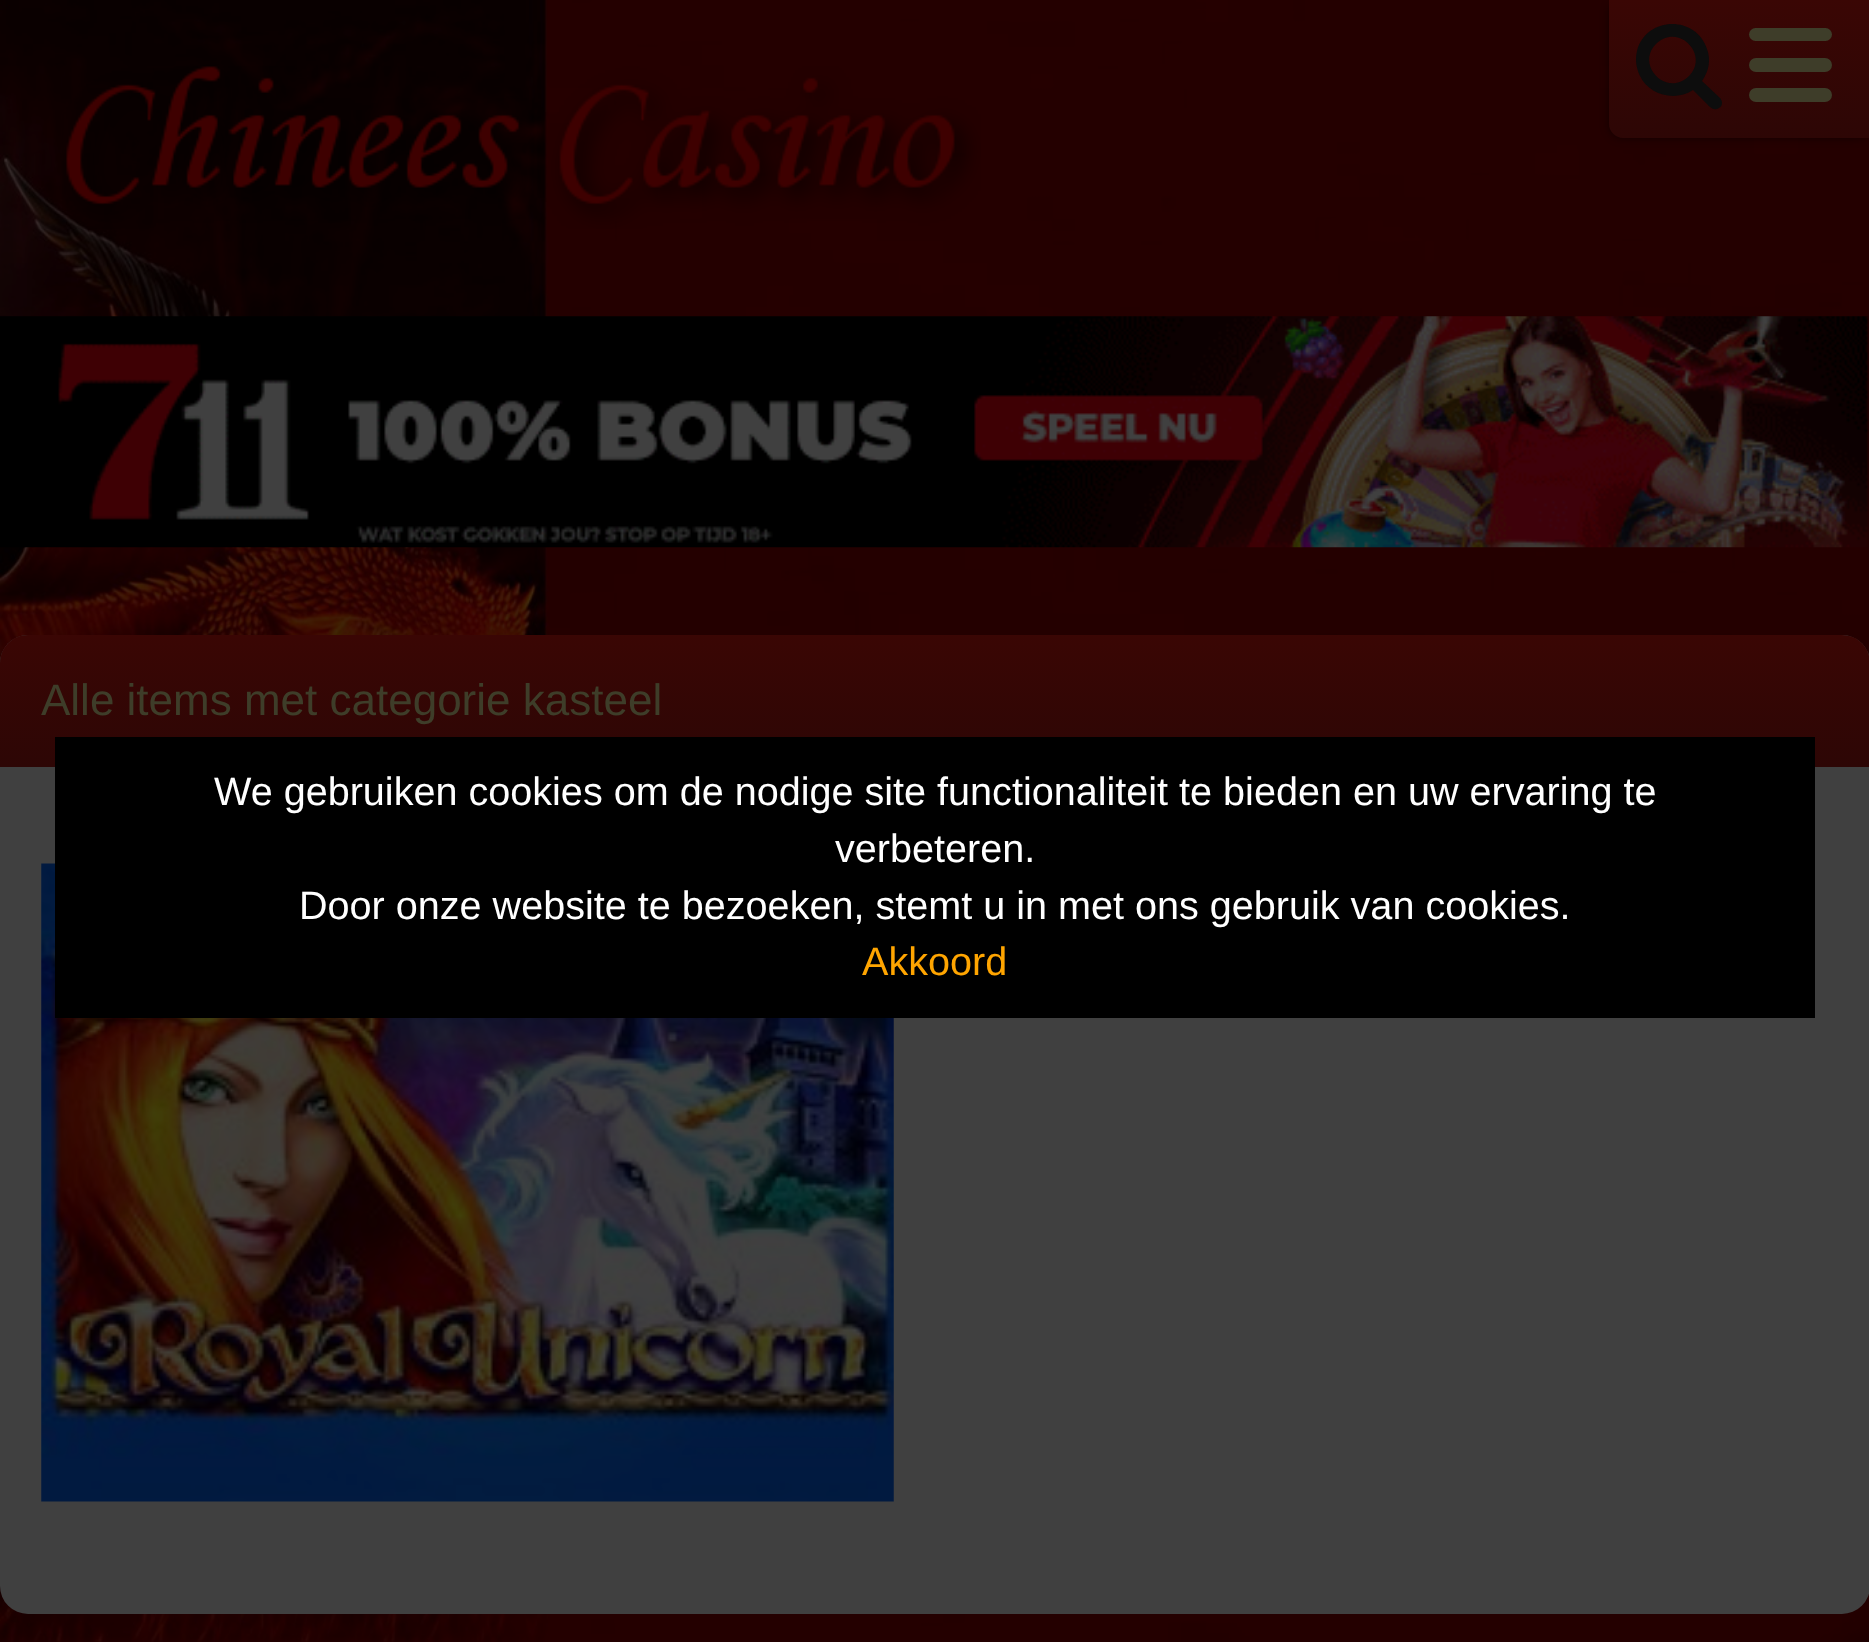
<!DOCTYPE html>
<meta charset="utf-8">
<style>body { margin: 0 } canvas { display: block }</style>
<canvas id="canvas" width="1869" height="1642"></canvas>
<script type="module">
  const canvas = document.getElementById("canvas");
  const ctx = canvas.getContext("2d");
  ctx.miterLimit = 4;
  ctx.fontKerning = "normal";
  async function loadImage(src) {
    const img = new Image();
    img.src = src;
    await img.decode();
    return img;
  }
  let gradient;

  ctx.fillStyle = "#ffffff";
  ctx.fillRect(0, 0, 1869, 1642);
  ctx.drawImage(await loadImage("img1.png"), 0, 0, 1869, 1642);
  ctx.drawImage(await loadImage("img2.png"), 62, 66, 919, 163);
  ctx.fillStyle = "rgba(0, 0, 0, 0.5)";
  ctx.filter = "blur(4px)";
  ctx.beginPath();
  ctx.roundRect(1609, 0, 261, 138, 14);
  ctx.fill();
  ctx.filter = "none";
  gradient = ctx.createLinearGradient(1739, 0, 1739, 138);
  gradient.addColorStop(0, "#3a0604");
  gradient.addColorStop(1, "#2d0605");
  ctx.fillStyle = gradient;
  ctx.beginPath();
  ctx.moveTo(1609, 0);
  ctx.lineTo(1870, 0);
  ctx.lineTo(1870, 138);
  ctx.lineTo(1623, 138);
  ctx.bezierCurveTo(1615.5, 138, 1609, 131.5, 1609, 124);
  ctx.closePath();
  ctx.fill();
  ctx.fillStyle = "#0d0d0d";
  ctx.beginPath();
  ctx.moveTo(1689, 76);
  ctx.bezierCurveTo(1710, 55, 1678, 22, 1656, 44);
  ctx.bezierCurveTo(1635, 65, 1667, 98, 1689, 76);
  ctx.closePath();
  ctx.moveTo(1722, 103);
  ctx.bezierCurveTo(1722, 105, 1721, 107, 1719, 108);
  ctx.bezierCurveTo(1713, 112, 1708, 105, 1705, 102);
  ctx.lineTo(1693, 90);
  ctx.bezierCurveTo(1675, 102, 1649, 95, 1640, 76);
  ctx.bezierCurveTo(1636, 68, 1635, 59, 1637, 51);
  ctx.bezierCurveTo(1646, 16, 1696, 15, 1707, 49);
  ctx.bezierCurveTo(1711, 60, 1709, 71, 1702, 81);
  ctx.lineTo(1720, 98);
  ctx.bezierCurveTo(1721, 99, 1722, 101, 1722, 103);
  ctx.closePath();
  ctx.fill();
  ctx.fillStyle = "#3e3d29";
  ctx.beginPath();
  ctx.roundRect(1749, 28, 83, 13, 6.5);
  ctx.fill();
  ctx.beginPath();
  ctx.roundRect(1749, 58, 83, 14, 7);
  ctx.fill();
  ctx.beginPath();
  ctx.roundRect(1749, 88, 83, 14, 7);
  ctx.fill();
  ctx.drawImage(await loadImage("img3.png"), 0, 316, 1869, 232);
  ctx.fillStyle = "#404040";
  ctx.beginPath();
  ctx.roundRect(0, 635, 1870, 979, 28);
  ctx.fill();
  gradient = ctx.createLinearGradient(935, 635, 935, 767);
  gradient.addColorStop(0, "#3a0604");
  gradient.addColorStop(1, "#2d0605");
  ctx.fillStyle = gradient;
  ctx.beginPath();
  ctx.moveTo(28, 635);
  ctx.lineTo(1842, 635);
  ctx.bezierCurveTo(1857.5, 635, 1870, 647.5, 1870, 663);
  ctx.lineTo(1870, 767);
  ctx.lineTo(0, 767);
  ctx.lineTo(0, 663);
  ctx.bezierCurveTo(0, 647.5, 12.5, 635, 28, 635);
  ctx.closePath();
  ctx.fill();
  ctx.font = "44px Liberation Sans";
  ctx.fillStyle = "#3e3d29";
  ctx.fillText("Alle items met categorie kasteel", 41, 715);
  ctx.drawImage(await loadImage("img4.png"), 41, 863, 853, 639);
  ctx.fillStyle = "#000000";
  ctx.fillRect(55, 737, 1760, 281);
  ctx.font = "39.6px Liberation Sans";
  ctx.fillStyle = "#ffffff";
  ctx.fillText("We gebruiken cookies om de nodige site functionaliteit te bieden en uw ervaring te", 214, 805);
  ctx.fillText("verbeteren.", 835, 862);
  ctx.fillText("Door onze website te bezoeken, stemt u in met ons gebruik van cookies.", 299, 919);
  ctx.fillStyle = "#ffa500";
  ctx.fillText("Akkoord", 862, 975);
</script>
